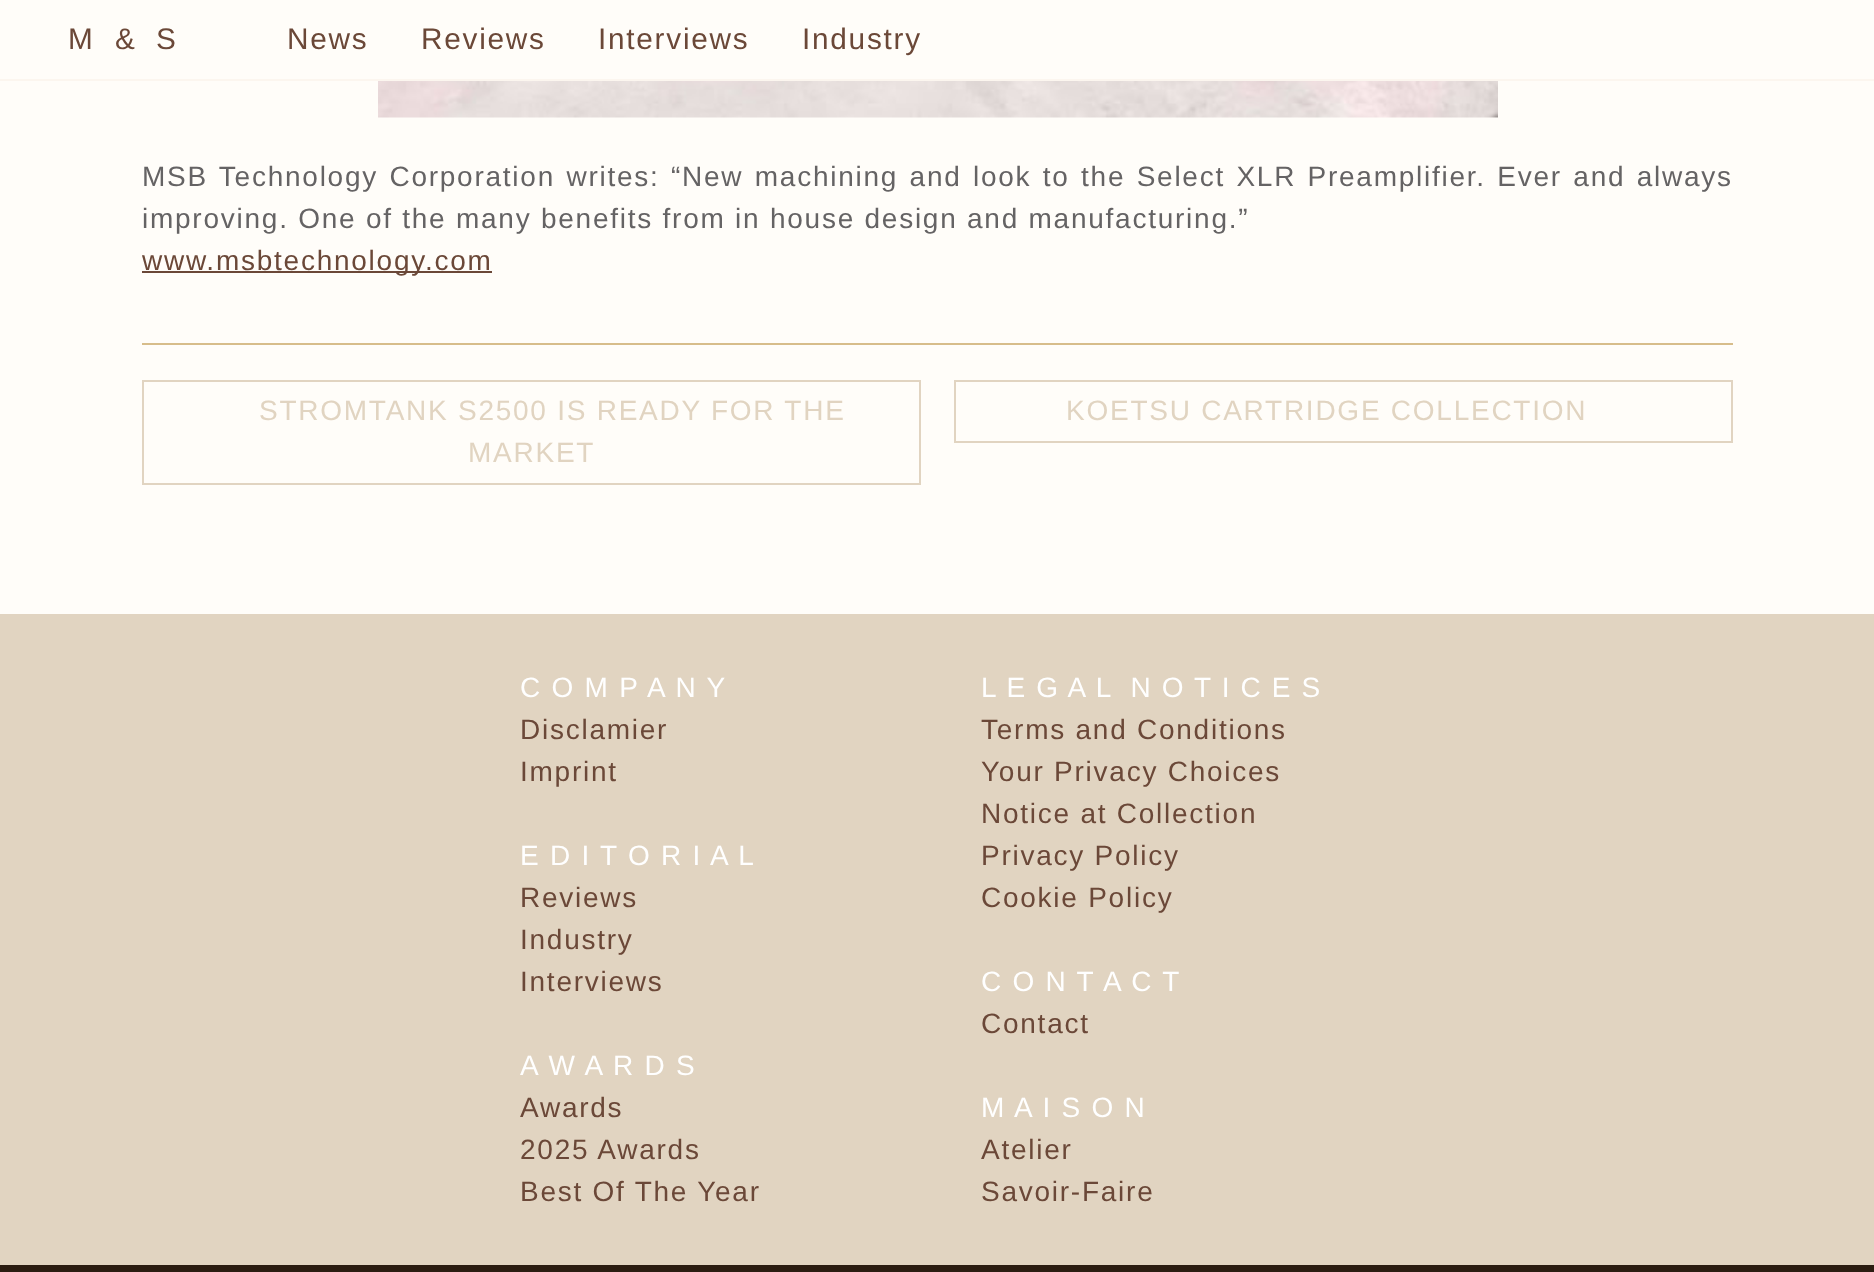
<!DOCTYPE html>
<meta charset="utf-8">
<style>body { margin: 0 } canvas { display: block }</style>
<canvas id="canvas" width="1874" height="1272"></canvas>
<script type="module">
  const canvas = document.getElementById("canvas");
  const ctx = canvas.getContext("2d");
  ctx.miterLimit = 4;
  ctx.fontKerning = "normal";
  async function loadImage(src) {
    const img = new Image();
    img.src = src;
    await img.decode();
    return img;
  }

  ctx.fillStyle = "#fffdf9";
  ctx.fillRect(0, 0, 1874, 1272);
  ctx.letterSpacing = "1.75px";
  ctx.font = "29.75px Liberation Sans";
  ctx.fillStyle = "#6b4838";
  ctx.fillText("M", 68, 49);
  ctx.fillText("&", 115, 49);
  ctx.wordSpacing = "-1px";
  ctx.fillText(" S", 146, 49);
  ctx.wordSpacing = "0px";
  ctx.fillText("News", 287, 49);
  ctx.fillText("Reviews", 421, 49);
  ctx.fillText("Interviews", 598, 49);
  ctx.fillText("Industry", 802, 49);
  ctx.fillStyle = "#d7bd8b";
  ctx.fillRect(142, 343, 1591, 2);
  ctx.fillStyle = "#fcf6ef";
  ctx.fillRect(0, 79, 1874, 2);
  ctx.drawImage(await loadImage("img1.png"), 378, 81, 1120, 37);
  ctx.wordSpacing = "1.9px";
  ctx.font = "28px Liberation Sans";
  ctx.fillStyle = "#656364";
  ctx.fillText("MSB Technology Corporation writes: “New machining and look to the Select XLR Preamplifier. Ever and always", 142, 186);
  ctx.wordSpacing = "0px";
  ctx.fillText("improving. One of the many benefits from in house design and manufacturing.”", 142, 228);
  ctx.fillStyle = "#6b4838";
  ctx.fillRect(142, 271, 350, 2);
  ctx.fillText("www.msbtechnology.com", 142, 270);
  ctx.strokeStyle = "#e1d4c1";
  ctx.lineWidth = 2;
  ctx.strokeRect(143, 381, 777, 103);
  ctx.fillStyle = "#e1d4c1";
  ctx.fillText("STROMTANK S2500 IS READY FOR THE", 259, 420);
  ctx.fillText("MARKET", 468, 462);
  ctx.strokeRect(955, 381, 777, 61);
  ctx.fillText("KOETSU CARTRIDGE COLLECTION", 1066, 420);
  ctx.fillRect(0, 614, 1874, 651);
  ctx.fillStyle = "#ffffff";
  ctx.fillText("C O M P A N Y", 520, 697);
  ctx.fillStyle = "#6b4838";
  ctx.fillText("Disclamier", 520, 739);
  ctx.fillText("Imprint", 520, 781);
  ctx.fillStyle = "#ffffff";
  ctx.fillText("E D I T O R I A L", 520, 865);
  ctx.fillStyle = "#6b4838";
  ctx.fillText("Reviews", 520, 907);
  ctx.fillText("Industry", 520, 949);
  ctx.fillText("Interviews", 520, 991);
  ctx.fillStyle = "#ffffff";
  ctx.fillText("A W A R D S", 520, 1075);
  ctx.fillStyle = "#6b4838";
  ctx.fillText("Awards", 520, 1117);
  ctx.fillText("2025 Awards", 520, 1159);
  ctx.fillText("Best Of The Year", 520, 1201);
  ctx.wordSpacing = "-0.25px";
  ctx.fillStyle = "#ffffff";
  ctx.fillText("L E G A L  N O T I C E S", 981, 697);
  ctx.wordSpacing = "0px";
  ctx.fillStyle = "#6b4838";
  ctx.fillText("Terms and Conditions", 981, 739);
  ctx.fillText("Your Privacy Choices", 981, 781);
  ctx.fillText("Notice at Collection", 981, 823);
  ctx.fillText("Privacy Policy", 981, 865);
  ctx.fillText("Cookie Policy", 981, 907);
  ctx.fillStyle = "#ffffff";
  ctx.fillText("C O N T A C T", 981, 991);
  ctx.fillStyle = "#6b4838";
  ctx.fillText("Contact", 981, 1033);
  ctx.fillStyle = "#ffffff";
  ctx.fillText("M A I S O N", 981, 1117);
  ctx.fillStyle = "#6b4838";
  ctx.fillText("Atelier", 981, 1159);
  ctx.fillText("Savoir-Faire", 981, 1201);
  ctx.fillStyle = "#2b1c10";
  ctx.fillRect(0, 1265, 1874, 7);
</script>
